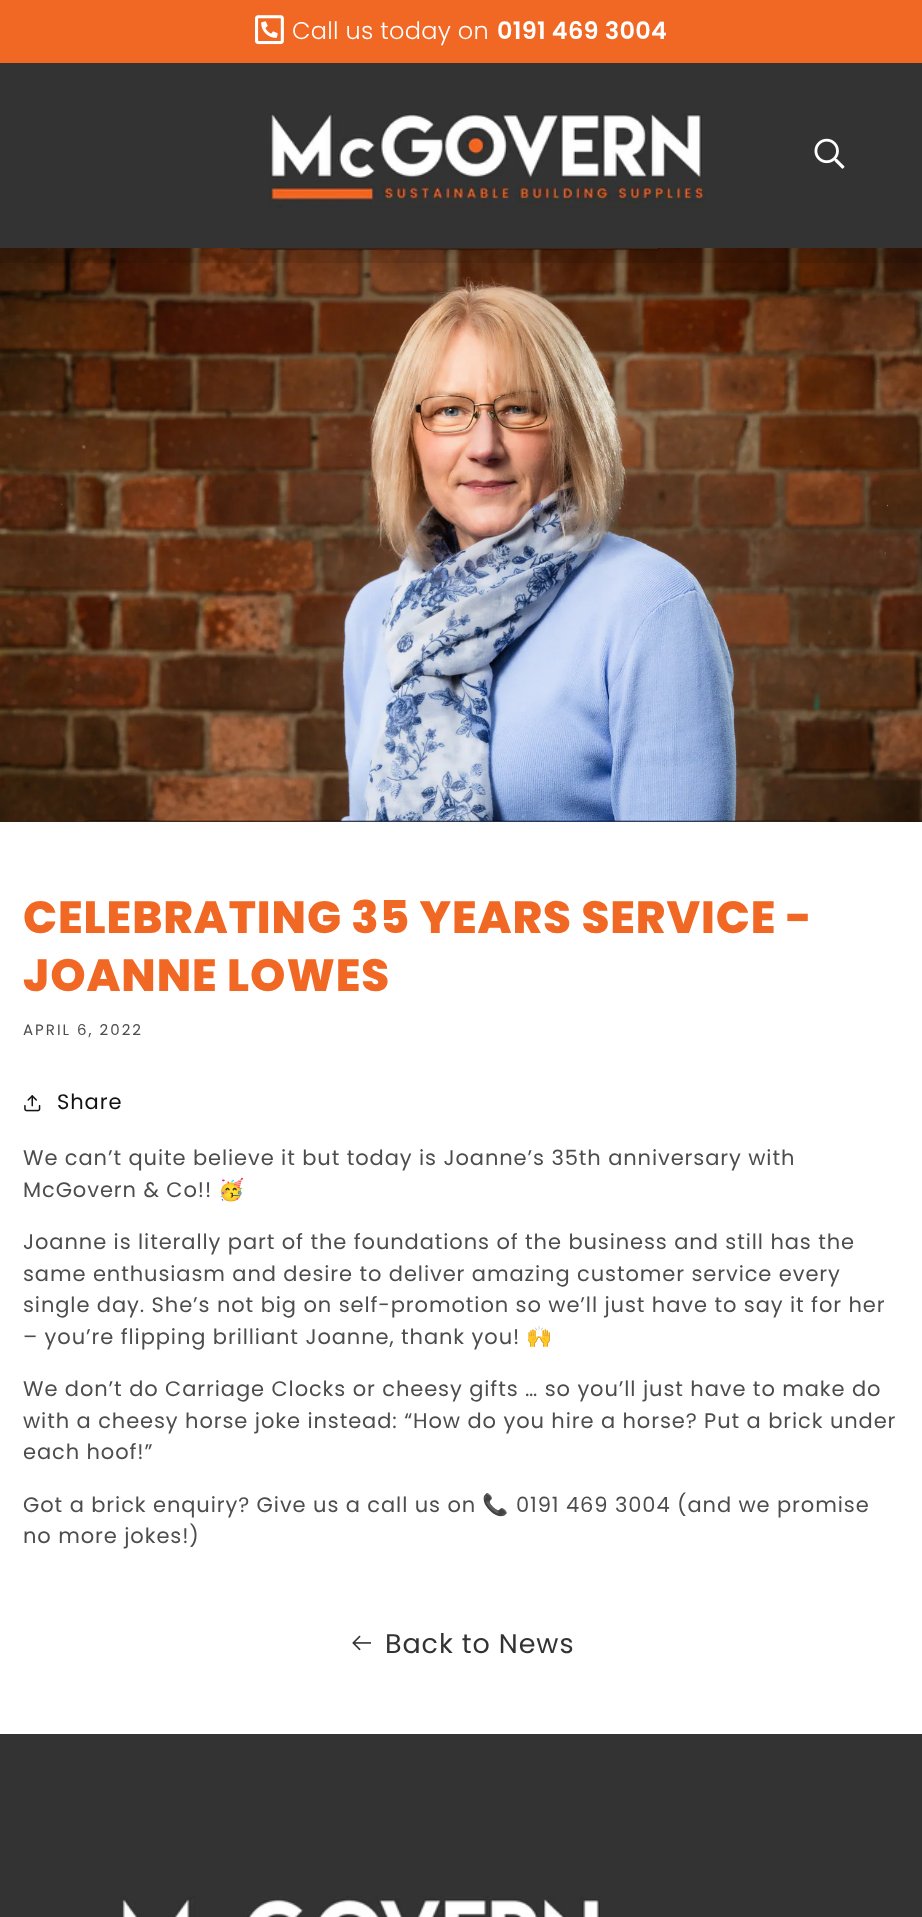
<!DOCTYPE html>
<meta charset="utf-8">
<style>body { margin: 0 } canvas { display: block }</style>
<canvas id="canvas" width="922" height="1917"></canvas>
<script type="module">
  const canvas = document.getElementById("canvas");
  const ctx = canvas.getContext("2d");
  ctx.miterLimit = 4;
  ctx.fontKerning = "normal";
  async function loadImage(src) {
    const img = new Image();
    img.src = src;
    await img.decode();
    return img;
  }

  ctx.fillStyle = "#ffffff";
  ctx.fillRect(0, 0, 922, 1917);
  ctx.fillStyle = "#f16724";
  ctx.fillRect(0, 0, 922, 63);
  ctx.drawImage(await loadImage("img1.png"), 255, 15, 29, 30);
  ctx.letterSpacing = "0.25px";
  ctx.font = "300 24px Poppins";
  ctx.fillStyle = "#ffffff";
  ctx.fillText("Call us today on", 292, 39);
  ctx.font = "600 24px Poppins";
  ctx.fillText("0191 469 3004", 497, 39);
  ctx.fillStyle = "#333333";
  ctx.fillRect(0, 63, 922, 185);
  ctx.drawImage(await loadImage("img2.png"), 269, 113, 436, 96);
  ctx.drawImage(await loadImage("img3.png"), 814, 138, 31, 31);
  ctx.drawImage(await loadImage("img4.png"), 0, 248, 922, 574);
  ctx.fillStyle = "rgba(0, 0, 0, 0.11)";
  ctx.fillRect(0, 248, 922, 15);
  ctx.letterSpacing = "0.9px";
  ctx.font = "800 45px Poppins";
  ctx.fillStyle = "#f16724";
  ctx.fillText("CELEBRATING 35 YEARS SERVICE -", 23, 933);
  ctx.fillText("JOANNE LOWES", 23, 991);
  ctx.letterSpacing = "2px";
  ctx.font = "15px Poppins";
  ctx.fillStyle = "#4d4d4d";
  ctx.fillText("APRIL 6, 2022", 23, 1035);
  ctx.drawImage(await loadImage("img5.png"), 24, 1095, 17, 17);
  ctx.letterSpacing = "0.9px";
  ctx.font = "21px Poppins";
  ctx.fillStyle = "#121212";
  ctx.fillText("Share", 57, 1109);
  ctx.fillStyle = "#4d4d4d";
  ctx.fillText("We can’t quite believe it but today is Joanne’s 35th anniversary with", 23, 1165);
  ctx.fillText("McGovern & Co!!", 23, 1197);
  ctx.font = "21px Noto Color Emoji";
  ctx.fillText("🥳", 218, 1197);
  ctx.font = "21px Poppins";
  ctx.fillText("Joanne is literally part of the foundations of the business and still has the", 23, 1249);
  ctx.fillText("same enthusiasm and desire to deliver amazing customer service every", 23, 1281);
  ctx.fillText("single day. She’s not big on self-promotion so we’ll just have to say it for her", 23, 1312);
  ctx.fillText("– you’re flipping brilliant Joanne, thank you!", 23, 1344);
  ctx.font = "21px Noto Color Emoji";
  ctx.fillText("🙌", 526, 1344);
  ctx.font = "21px Poppins";
  ctx.fillText("We don’t do Carriage Clocks or cheesy gifts … so you’ll just have to make do", 23, 1396);
  ctx.fillText("with a cheesy horse joke instead: “How do you hire a horse? Put a brick under", 23, 1428);
  ctx.fillText("each hoof!”", 23, 1459);
  ctx.fillText("Got a brick enquiry? Give us a call us on", 23, 1512);
  ctx.font = "21px Noto Color Emoji";
  ctx.fillText("📞", 482, 1512);
  ctx.font = "21px Poppins";
  ctx.fillText("0191 469 3004 (and we promise", 516, 1512);
  ctx.fillText("no more jokes!)", 23, 1543);
  ctx.drawImage(await loadImage("img6.png"), 352, 1635, 19, 16);
  ctx.font = "27px Poppins";
  ctx.fillStyle = "#333333";
  ctx.fillText("Back to News", 385, 1653);
  ctx.fillRect(0, 1734, 922, 183);
  ctx.drawImage(await loadImage("img7.png"), 122, 1896, 478, 21);
</script>
